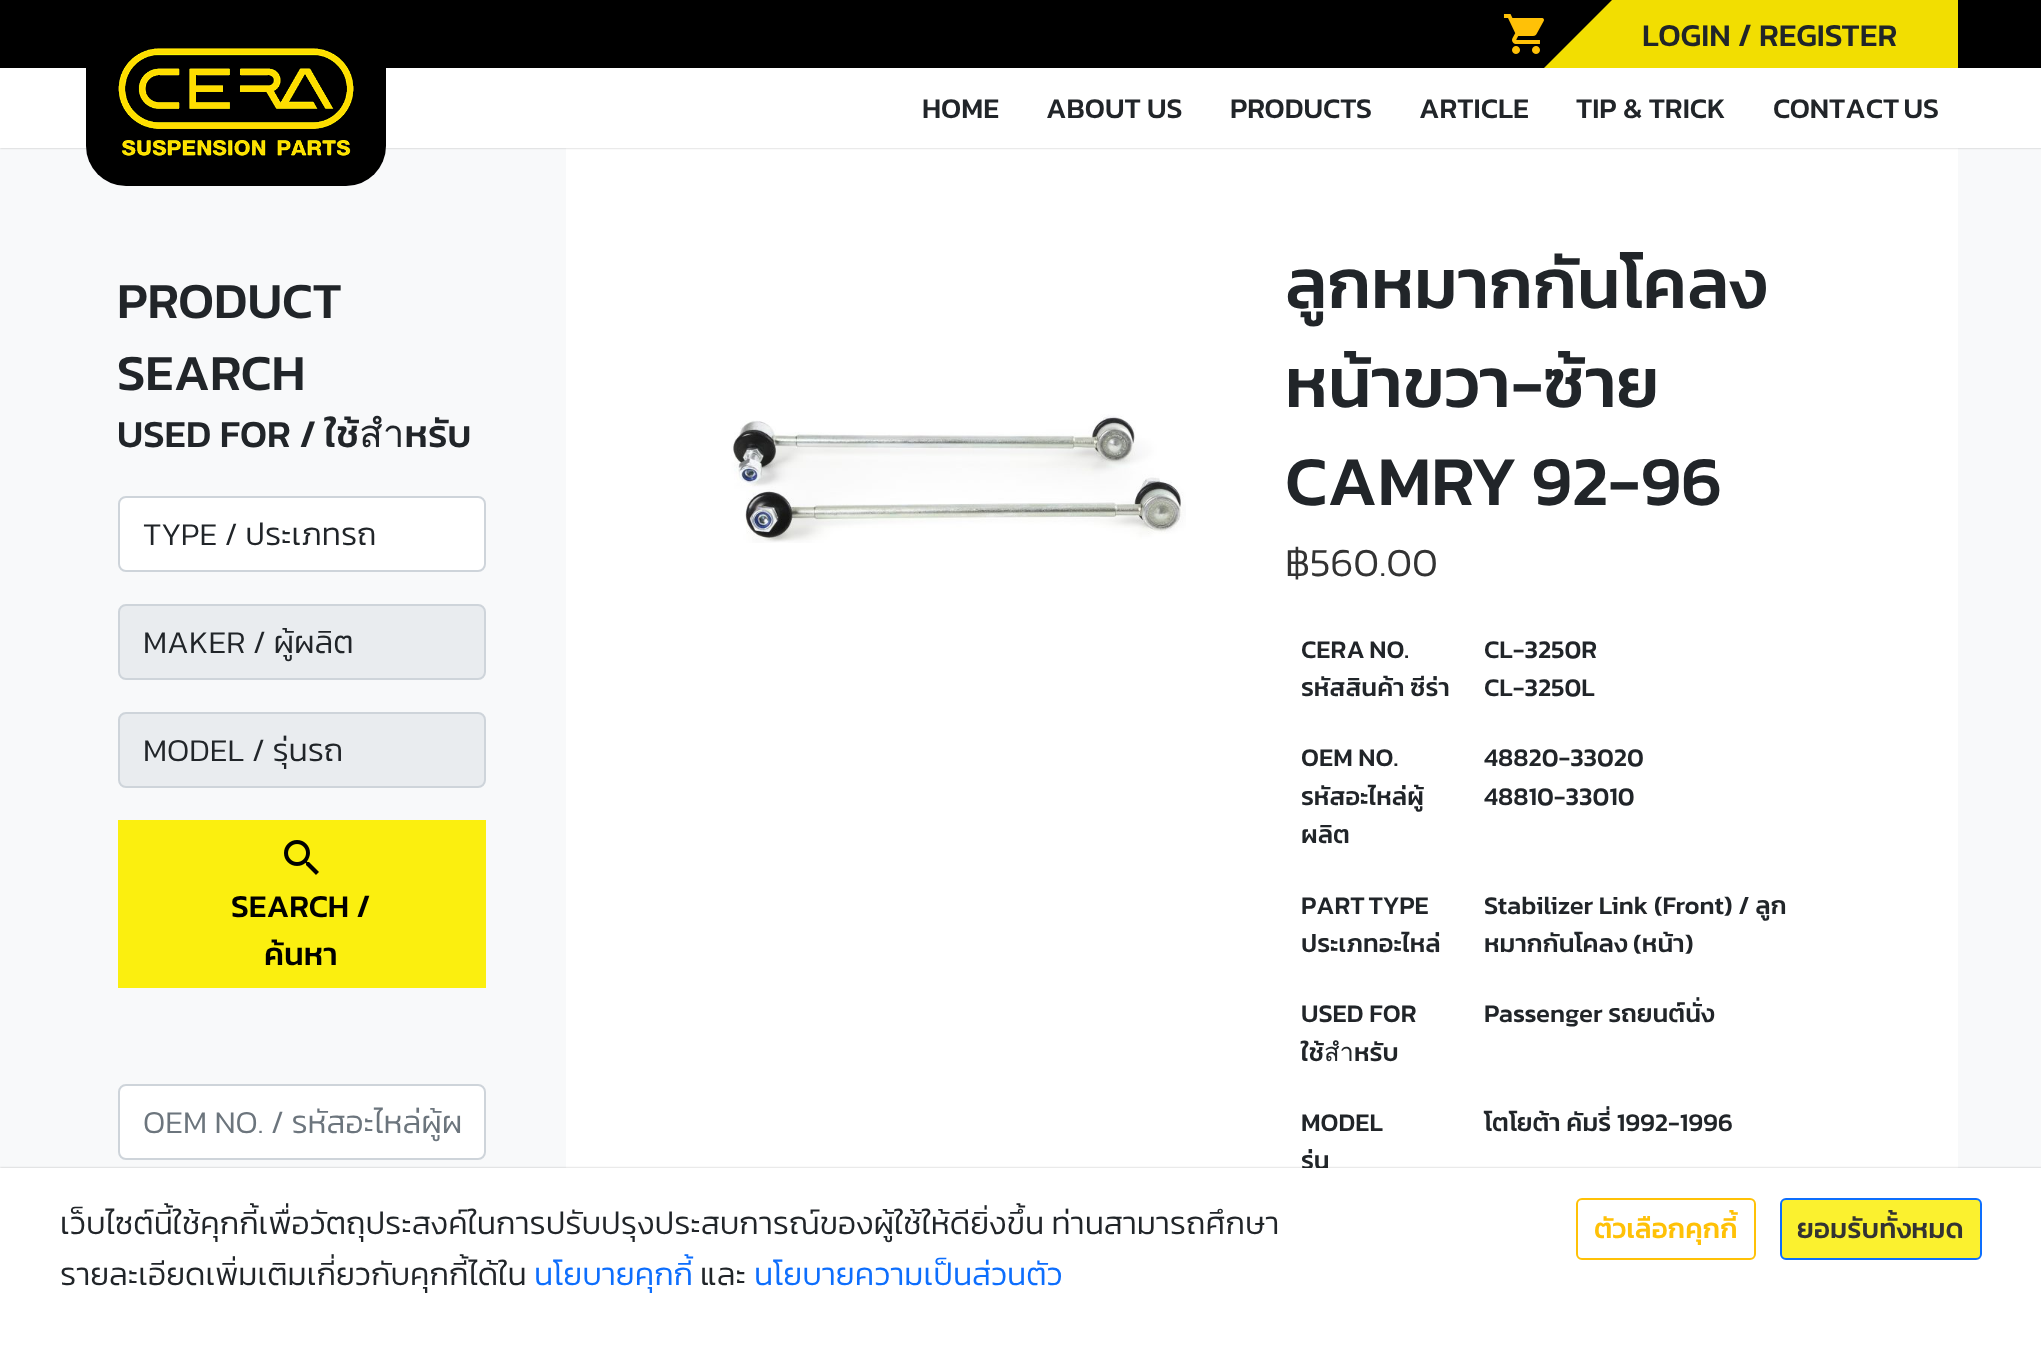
<!DOCTYPE html>
<meta charset="utf-8">
<style>body { margin: 0 } canvas { display: block }</style>
<canvas id="canvas" width="2041" height="1349"></canvas>
<script type="module">
  const canvas = document.getElementById("canvas");
  const ctx = canvas.getContext("2d");
  ctx.miterLimit = 4;
  ctx.fontKerning = "normal";
  async function loadImage(src) {
    const img = new Image();
    img.src = src;
    await img.decode();
    return img;
  }

  ctx.fillStyle = "#f8f9fa";
  ctx.fillRect(0, 0, 2041, 1349);
  ctx.fillStyle = "#000000";
  ctx.fillRect(0, 0, 2041, 68);
  ctx.drawImage(await loadImage("img1.png"), 1503, 14, 41, 40);
  ctx.fillStyle = "#ffffff";
  ctx.fillRect(566, 148, 1392, 1020);
  ctx.fillStyle = "rgba(0, 0, 0, 0.25)";
  ctx.filter = "blur(1px)";
  ctx.beginPath();
  ctx.rect(0, 68, 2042, 80);
  ctx.fill();
  ctx.filter = "none";
  ctx.fillStyle = "#f2de01";
  ctx.fillRect(1612, 0, 346, 68);
  ctx.beginPath();
  ctx.moveTo(1612, 68);
  ctx.lineTo(1544, 68);
  ctx.lineTo(1612, 0);
  ctx.closePath();
  ctx.fill();
  ctx.font = "500 32px Kanit";
  ctx.fillStyle = "#212529";
  ctx.fillText("LOGIN / REGISTER", 1642, 46);
  ctx.fillStyle = "#ffffff";
  ctx.fillRect(0, 68, 2041, 80);
  ctx.drawImage(await loadImage("img2.png"), 86, 48, 300, 138);
  ctx.font = "500 28.75px Kanit";
  ctx.fillStyle = "#212529";
  ctx.fillText("HOME", 922, 118);
  ctx.fillText("ABOUT US", 1046, 118);
  ctx.fillText("PRODUCTS", 1230, 118);
  ctx.fillText("ARTICLE", 1419, 118);
  ctx.fillText("TIP & TRICK", 1576, 118);
  ctx.wordSpacing = "-2px";
  ctx.fillText("CONTACT US", 1773, 118);
  ctx.wordSpacing = "0px";
  ctx.font = "500 51px Kanit";
  ctx.fillText("PRODUCT", 117, 318);
  ctx.fillText("SEARCH", 117, 390);
  ctx.font = "500 38.5px Kanit";
  ctx.fillText("USED FOR / ใช้สำหรับ", 117, 447);
  ctx.fillStyle = "#ffffff";
  ctx.beginPath();
  ctx.roundRect(119, 497, 366, 74, 7);
  ctx.fill();
  ctx.strokeStyle = "#ced4da";
  ctx.lineWidth = 2;
  ctx.stroke();
  ctx.font = "300 32px Kanit";
  ctx.fillStyle = "#212529";
  ctx.fillText("TYPE / ประเภทรถ", 143, 545);
  ctx.fillStyle = "#e9ecef";
  ctx.beginPath();
  ctx.roundRect(119, 605, 366, 74, 7);
  ctx.fill();
  ctx.stroke();
  ctx.fillStyle = "#212529";
  ctx.fillText("MAKER / ผู้ผลิต", 143, 653);
  ctx.fillStyle = "#e9ecef";
  ctx.beginPath();
  ctx.roundRect(119, 713, 366, 74, 7);
  ctx.fill();
  ctx.stroke();
  ctx.fillStyle = "#212529";
  ctx.fillText("MODEL / รุ่นรถ", 143, 761);
  ctx.fillStyle = "#fbef0f";
  ctx.fillRect(118, 820, 368, 168);
  ctx.drawImage(await loadImage("img3.png"), 284, 840, 35, 35);
  ctx.font = "500 32px Kanit";
  ctx.fillStyle = "#000000";
  ctx.fillText("SEARCH /", 231, 917);
  ctx.fillText("ค้นหา", 264, 965);
  ctx.fillStyle = "#ffffff";
  ctx.beginPath();
  ctx.roundRect(119, 1085, 366, 74, 7);
  ctx.fill();
  ctx.stroke();
  ctx.font = "300 32px Kanit";
  ctx.fillStyle = "#6c757d";
  ctx.fillText("OEM NO. / รหัสอะไหล่ผู้ผ", 143, 1133);
  ctx.drawImage(await loadImage("img4.png"), 731, 414, 455, 129);
  ctx.font = "500 70.5px Kanit";
  ctx.fillStyle = "#212529";
  ctx.fillText("ลูกหมากกันโคลง", 1285, 308);
  ctx.fillText("หน้าขวา-ซ้าย", 1285, 407);
  ctx.wordSpacing = "-2px";
  ctx.fillText("CAMRY 92-96", 1285, 505);
  ctx.wordSpacing = "0px";
  ctx.font = "300 40px Kanit";
  ctx.fillStyle = "#333333";
  ctx.fillText("฿560.00", 1285, 576);
  ctx.wordSpacing = "-1px";
  ctx.font = "500 25.6px Kanit";
  ctx.fillStyle = "#212529";
  ctx.fillText("CERA NO.", 1301, 658);
  ctx.wordSpacing = "0px";
  ctx.fillText("รหัสสินค้า ซีร่า", 1301, 696);
  ctx.fillText("CL-3250R", 1484, 658);
  ctx.fillText("CL-3250L", 1484, 696);
  ctx.fillText("OEM NO.", 1301, 766);
  ctx.fillText("รหัสอะไหล่ผู้", 1301, 805);
  ctx.fillText("ผลิต", 1301, 843);
  ctx.fillText("48820-33020", 1484, 766);
  ctx.fillText("48810-33010", 1484, 805);
  ctx.wordSpacing = "-2px";
  ctx.fillText("PART TYPE", 1301, 914);
  ctx.wordSpacing = "0px";
  ctx.fillText("ประเภทอะไหล่", 1301, 952);
  ctx.fillText("Stabilizer Link (Front) / ลูก", 1484, 914);
  ctx.fillText("หมากกันโคลง (หน้า)", 1484, 952);
  ctx.fillText("USED FOR", 1301, 1022);
  ctx.fillText("ใช้สำหรับ", 1301, 1061);
  ctx.fillText("Passenger รถยนต์นั่ง", 1484, 1022);
  ctx.fillText("MODEL", 1301, 1131);
  ctx.fillText("รุ่น", 1301, 1169);
  ctx.fillText("โตโยต้า คัมรี่ 1992-1996", 1484, 1131);
  ctx.fillStyle = "rgba(0, 0, 0, 0.25)";
  ctx.filter = "blur(1px)";
  ctx.beginPath();
  ctx.rect(0, 1168, 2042, 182);
  ctx.fill();
  ctx.filter = "none";
  ctx.fillStyle = "#ffffff";
  ctx.fillRect(0, 1168, 2041, 181);
  ctx.font = "300 32px Kanit";
  ctx.fillStyle = "#212529";
  ctx.fillText("เว็บไซต์นี้ใช้คุกกี้เพื่อวัตถุประสงค์ในการปรับปรุงประสบการณ์ของผู้ใช้ให้ดียิ่งขึ้น ท่านสามารถศึกษา", 60, 1234);
  ctx.fillText("รายละเอียดเพิ่มเติมเกี่ยวกับคุกกี้ได้ใน", 60, 1285);
  ctx.fillStyle = "#0d6efd";
  ctx.fillText("นโยบายคุกกี้", 534, 1285);
  ctx.fillStyle = "#212529";
  ctx.fillText("และ", 700, 1285);
  ctx.fillStyle = "#0d6efd";
  ctx.fillText("นโยบายความเป็นส่วนตัว", 754, 1285);
  ctx.beginPath();
  ctx.roundRect(1577, 1199, 178, 60, 5);
  ctx.strokeStyle = "#ffc107";
  ctx.stroke();
  ctx.font = "500 28px Kanit";
  ctx.fillStyle = "#ffc107";
  ctx.fillText("ตัวเลือกคุกกี้", 1594, 1238);
  ctx.fillStyle = "#fbf12f";
  ctx.beginPath();
  ctx.roundRect(1781, 1199, 200, 60, 5);
  ctx.fill();
  ctx.strokeStyle = "#0d6efd";
  ctx.stroke();
  ctx.fillStyle = "#333333";
  ctx.fillText("ยอมรับทั้งหมด", 1797, 1238);
</script>
